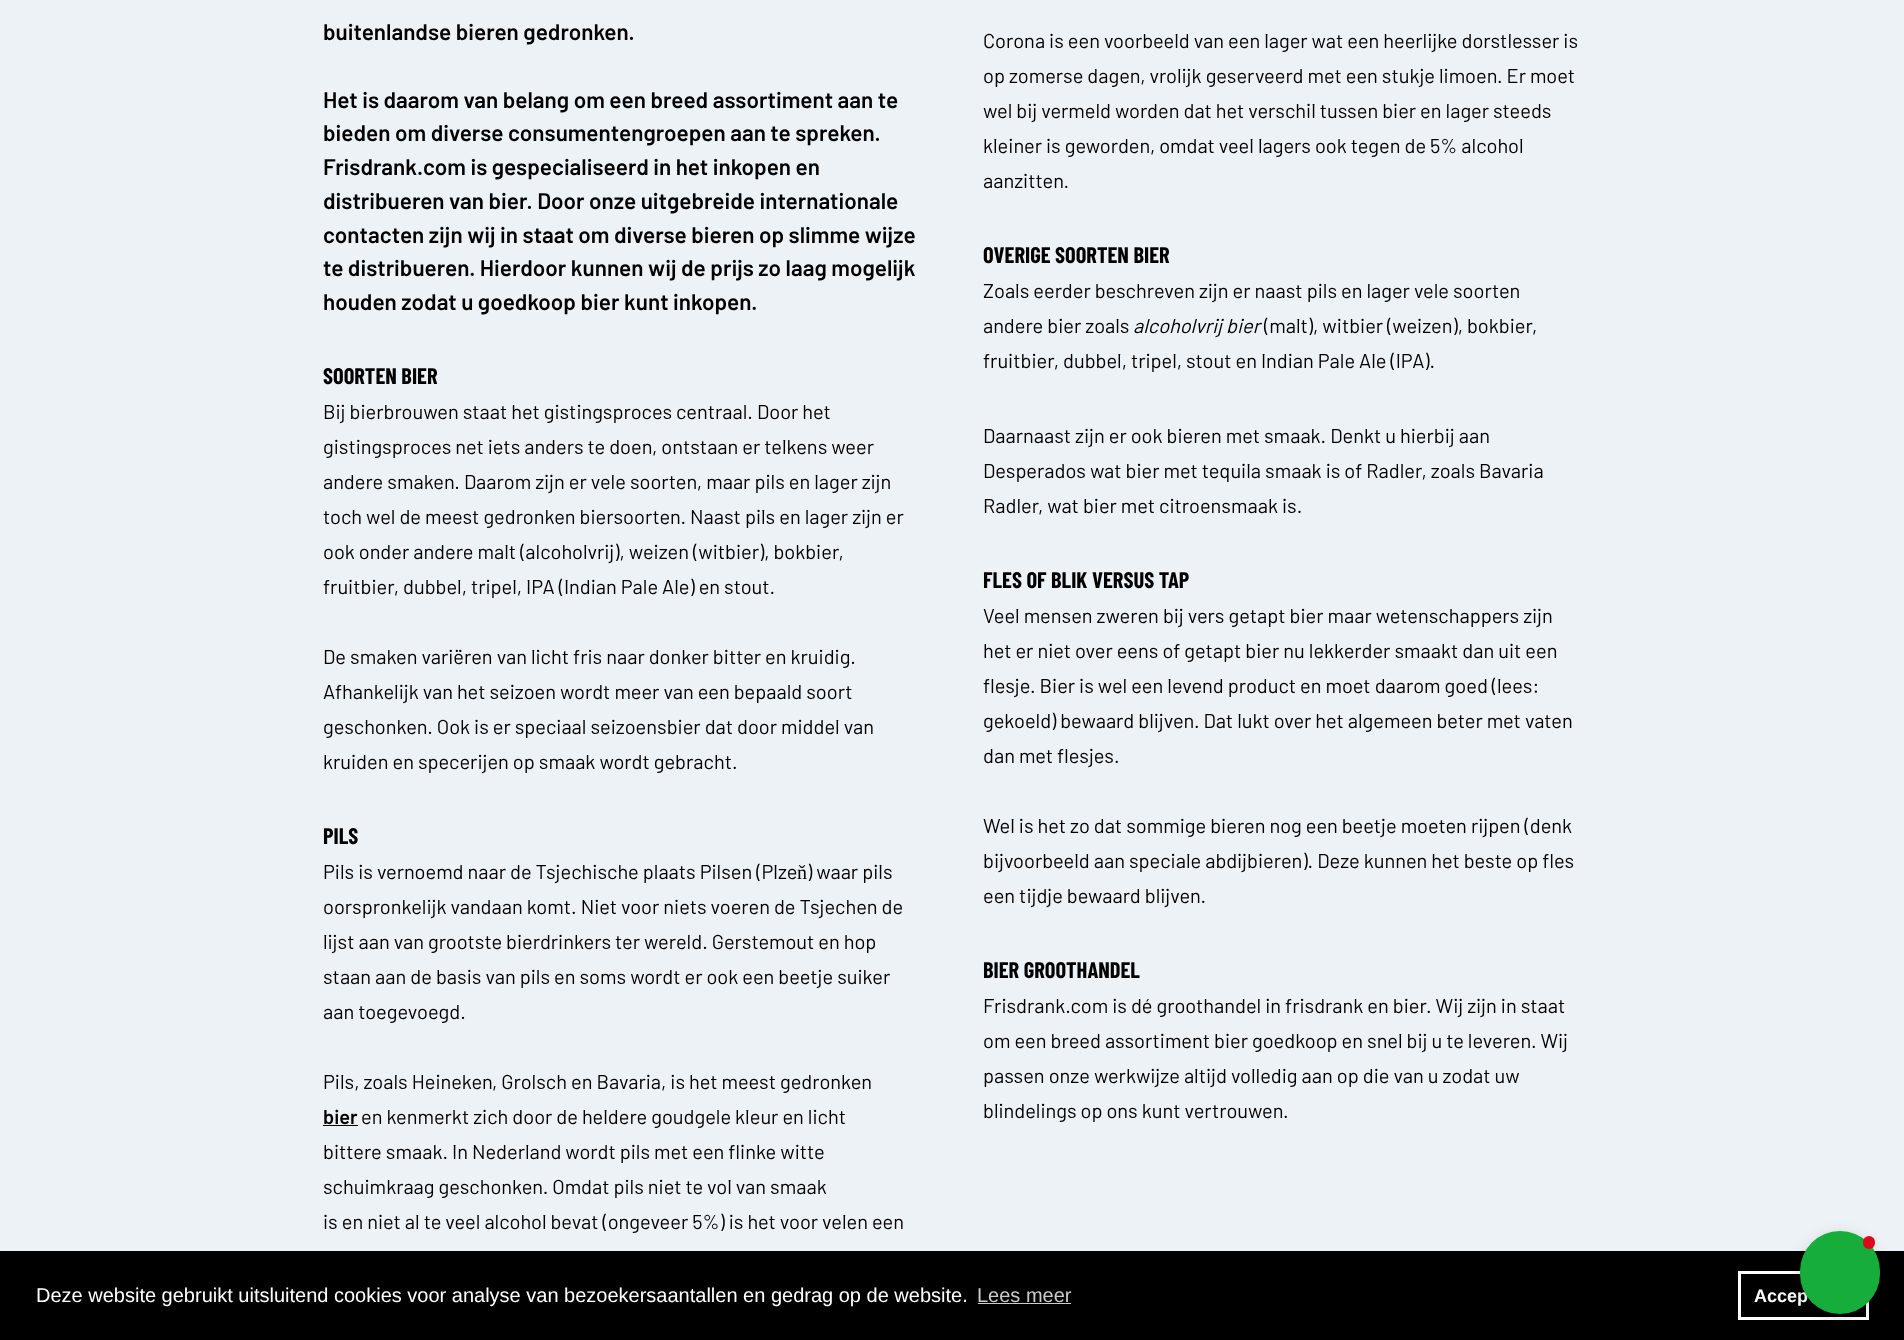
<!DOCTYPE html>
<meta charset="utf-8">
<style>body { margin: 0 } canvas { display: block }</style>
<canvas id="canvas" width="1904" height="1340"></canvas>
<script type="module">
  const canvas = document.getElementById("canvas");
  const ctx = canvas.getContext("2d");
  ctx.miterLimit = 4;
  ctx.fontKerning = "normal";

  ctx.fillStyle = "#edf2f7";
  ctx.fillRect(0, 0, 1904, 1340);
  ctx.font = "600 22.5px Barlow";
  ctx.fillStyle = "#000000";
  ctx.fillText("buitenlandse bieren gedronken.", 323, 40);
  ctx.fillText("Het is daarom van belang om een breed assortiment aan te", 323, 108);
  ctx.fillText("bieden om diverse consumentengroepen aan te spreken.", 323, 141);
  ctx.fillText("Frisdrank.com is gespecialiseerd in het inkopen en", 323, 175);
  ctx.fillText("distribueren van bier. Door onze uitgebreide internationale", 323, 209);
  ctx.fillText("contacten zijn wij in staat om diverse bieren op slimme wijze", 323, 243);
  ctx.fillText("te distribueren. Hierdoor kunnen wij de prijs zo laag mogelijk", 323, 276);
  ctx.fillText("houden zodat u goedkoop bier kunt inkopen.", 323, 310);
  ctx.font = "bold 22.5px Barlow Condensed";
  ctx.fillText("SOORTEN BIER", 323, 384);
  ctx.font = "20px Barlow";
  ctx.fillText("Bij bierbrouwen staat het gistingsproces centraal. Door het", 323, 419);
  ctx.fillText("gistingsproces net iets anders te doen, ontstaan er telkens weer", 323, 454);
  ctx.fillText("andere smaken. Daarom zijn er vele soorten, maar pils en lager zijn", 323, 489);
  ctx.fillText("toch wel de meest gedronken biersoorten. Naast pils en lager zijn er", 323, 524);
  ctx.fillText("ook onder andere malt (alcoholvrij), weizen (witbier), bokbier,", 323, 559);
  ctx.fillText("fruitbier, dubbel, tripel, IPA (Indian Pale Ale) en stout.", 323, 594);
  ctx.fillText("De smaken variëren van licht fris naar donker bitter en kruidig.", 323, 664);
  ctx.fillText("Afhankelijk van het seizoen wordt meer van een bepaald soort", 323, 699);
  ctx.fillText("geschonken. Ook is er speciaal seizoensbier dat door middel van", 323, 734);
  ctx.fillText("kruiden en specerijen op smaak wordt gebracht.", 323, 769);
  ctx.font = "bold 22.5px Barlow Condensed";
  ctx.fillText("PILS", 323, 844);
  ctx.font = "20px Barlow";
  ctx.fillText("Pils is vernoemd naar de Tsjechische plaats Pilsen (Plze", 323, 879);
  ctx.font = "20px Liberation Serif";
  ctx.fillText("ň", 797, 879);
  ctx.font = "20px Barlow";
  ctx.fillText(") waar pils", 807, 879);
  ctx.fillText("oorspronkelijk vandaan komt. Niet voor niets voeren de Tsjechen de", 323, 914);
  ctx.fillText("lijst aan van grootste bierdrinkers ter wereld. Gerstemout en hop", 323, 949);
  ctx.fillText("staan aan de basis van pils en soms wordt er ook een beetje suiker", 323, 984);
  ctx.fillText("aan toegevoegd.", 323, 1019);
  ctx.fillText("Pils, zoals Heineken", 323, 1089);
  ctx.fillText(", Grolsch en Bavaria, is het meest gedronken", 492, 1089);
  ctx.font = "600 20px Barlow";
  ctx.fillText("bier", 323, 1124);
  ctx.fillRect(323, 1125, 35, 1);
  ctx.font = "20px Barlow";
  ctx.fillText("en kenmerkt zich door de heldere goudgele kleur en licht", 361, 1124);
  ctx.fillText("bittere smaak. In Nederland wordt pils met een flinke witte", 323, 1159);
  ctx.fillText("schuimkraag geschonken. Omdat pils niet te vol van smaak", 323, 1194);
  ctx.fillText("is en niet al te veel alcohol bevat (ongeveer 5%) is het voor velen een", 323, 1229);
  ctx.fillText("Corona is een voorbeeld van een lager wat een heerlijke dorstlesser is", 983, 48);
  ctx.fillText("op zomerse dagen, vrolijk geserveerd met een stukje limoen. Er moet", 983, 83);
  ctx.fillText("wel bij vermeld worden dat het verschil tussen bier en lager steeds", 983, 118);
  ctx.fillText("kleiner is geworden, omdat veel lagers ook tegen de 5% alcohol", 983, 153);
  ctx.fillText("aanzitten.", 983, 188);
  ctx.font = "bold 22.5px Barlow Condensed";
  ctx.fillText("OVERIGE SOORTEN BIER", 983, 263);
  ctx.font = "20px Barlow";
  ctx.fillText("Zoals eerder beschreven zijn er naast pils en lager vele soorten", 983, 298);
  ctx.fillText("andere bier zoals", 983, 333);
  ctx.font = "italic 20px Barlow";
  ctx.fillText("alcoholvrij bier", 1133, 333);
  ctx.font = "20px Barlow";
  ctx.fillText("(malt), witbier (weizen), bokbier,", 1264, 333);
  ctx.fillText("fruitbier, dubbel, tripel, stout en Indian Pale Ale (IPA).", 983, 368);
  ctx.fillText("Daarnaast zijn er ook bieren met smaak. Denkt u hierbij aan", 983, 443);
  ctx.fillText("Desperados wat bier met tequila smaak is of Radler, zoals Bavaria", 983, 478);
  ctx.fillText("Radler", 983, 513);
  ctx.fillText(", wat bier met citroensmaak is.", 1038, 513);
  ctx.font = "bold 22.5px Barlow Condensed";
  ctx.fillText("FLES OF BLIK VERSUS TAP", 983, 588);
  ctx.font = "20px Barlow";
  ctx.fillText("Veel mensen zweren bij vers getapt bier maar wetenschappers zijn", 983, 623);
  ctx.fillText("het er niet over eens of getapt bier nu lekkerder smaakt dan uit een", 983, 658);
  ctx.fillText("flesje. Bier is wel een levend product en moet daarom goed (lees:", 983, 693);
  ctx.fillText("gekoeld) bewaard blijven. Dat lukt over het algemeen beter met vaten", 983, 728);
  ctx.fillText("dan met flesjes.", 983, 763);
  ctx.fillText("Wel is het zo dat sommige bieren nog een beetje moeten rijpen (denk", 983, 833);
  ctx.fillText("bijvoorbeeld aan speciale abdijbieren). Deze kunnen het beste op fles", 983, 868);
  ctx.fillText("een tijdje bewaard blijven.", 983, 903);
  ctx.font = "bold 22.5px Barlow Condensed";
  ctx.fillText("BIER GROOTHANDEL", 983, 978);
  ctx.font = "20px Barlow";
  ctx.fillText("Frisdrank.com is dé groothandel in frisdrank en bier. Wij zijn in staat", 983, 1013);
  ctx.fillText("om een breed assortiment bier goedkoop en snel bij u te leveren. Wij", 983, 1048);
  ctx.fillText("passen onze werkwijze altijd volledig aan op die van u zodat uw", 983, 1083);
  ctx.fillText("blindelings op ons kunt vertrouwen.", 983, 1118);
  ctx.fillRect(0, 1251, 1904, 89);
  ctx.font = "20px Liberation Sans";
  ctx.fillStyle = "#ffffff";
  ctx.fillText("Deze website gebruikt uitsluitend cookies voor analyse van bezoekersaantallen en gedrag op de website.", 36, 1302);
  ctx.fillStyle = "#cccccc";
  ctx.fillText("Lees meer", 977, 1302);
  ctx.fillRect(978, 1303, 93, 1);
  ctx.strokeStyle = "#ffffff";
  ctx.lineWidth = 3;
  ctx.strokeRect(1739.5, 1272.5, 128, 46);
  ctx.font = "bold 18px Liberation Sans";
  ctx.fillStyle = "#ffffff";
  ctx.fillText("Accep", 1754, 1302);
  ctx.fillStyle = "rgba(0, 0, 0, 0.15)";
  ctx.filter = "blur(7.5px)";
  ctx.beginPath();
  ctx.roundRect(1800, 1235, 80, 83, 40);
  ctx.fill();
  ctx.filter = "none";
  ctx.fillStyle = "#17ad3a";
  ctx.beginPath();
  ctx.roundRect(1800, 1231, 80, 83, 40);
  ctx.fill();
  ctx.fillStyle = "#de091a";
  ctx.beginPath();
  ctx.roundRect(1863, 1236, 12, 13, 6);
  ctx.fill();
</script>
